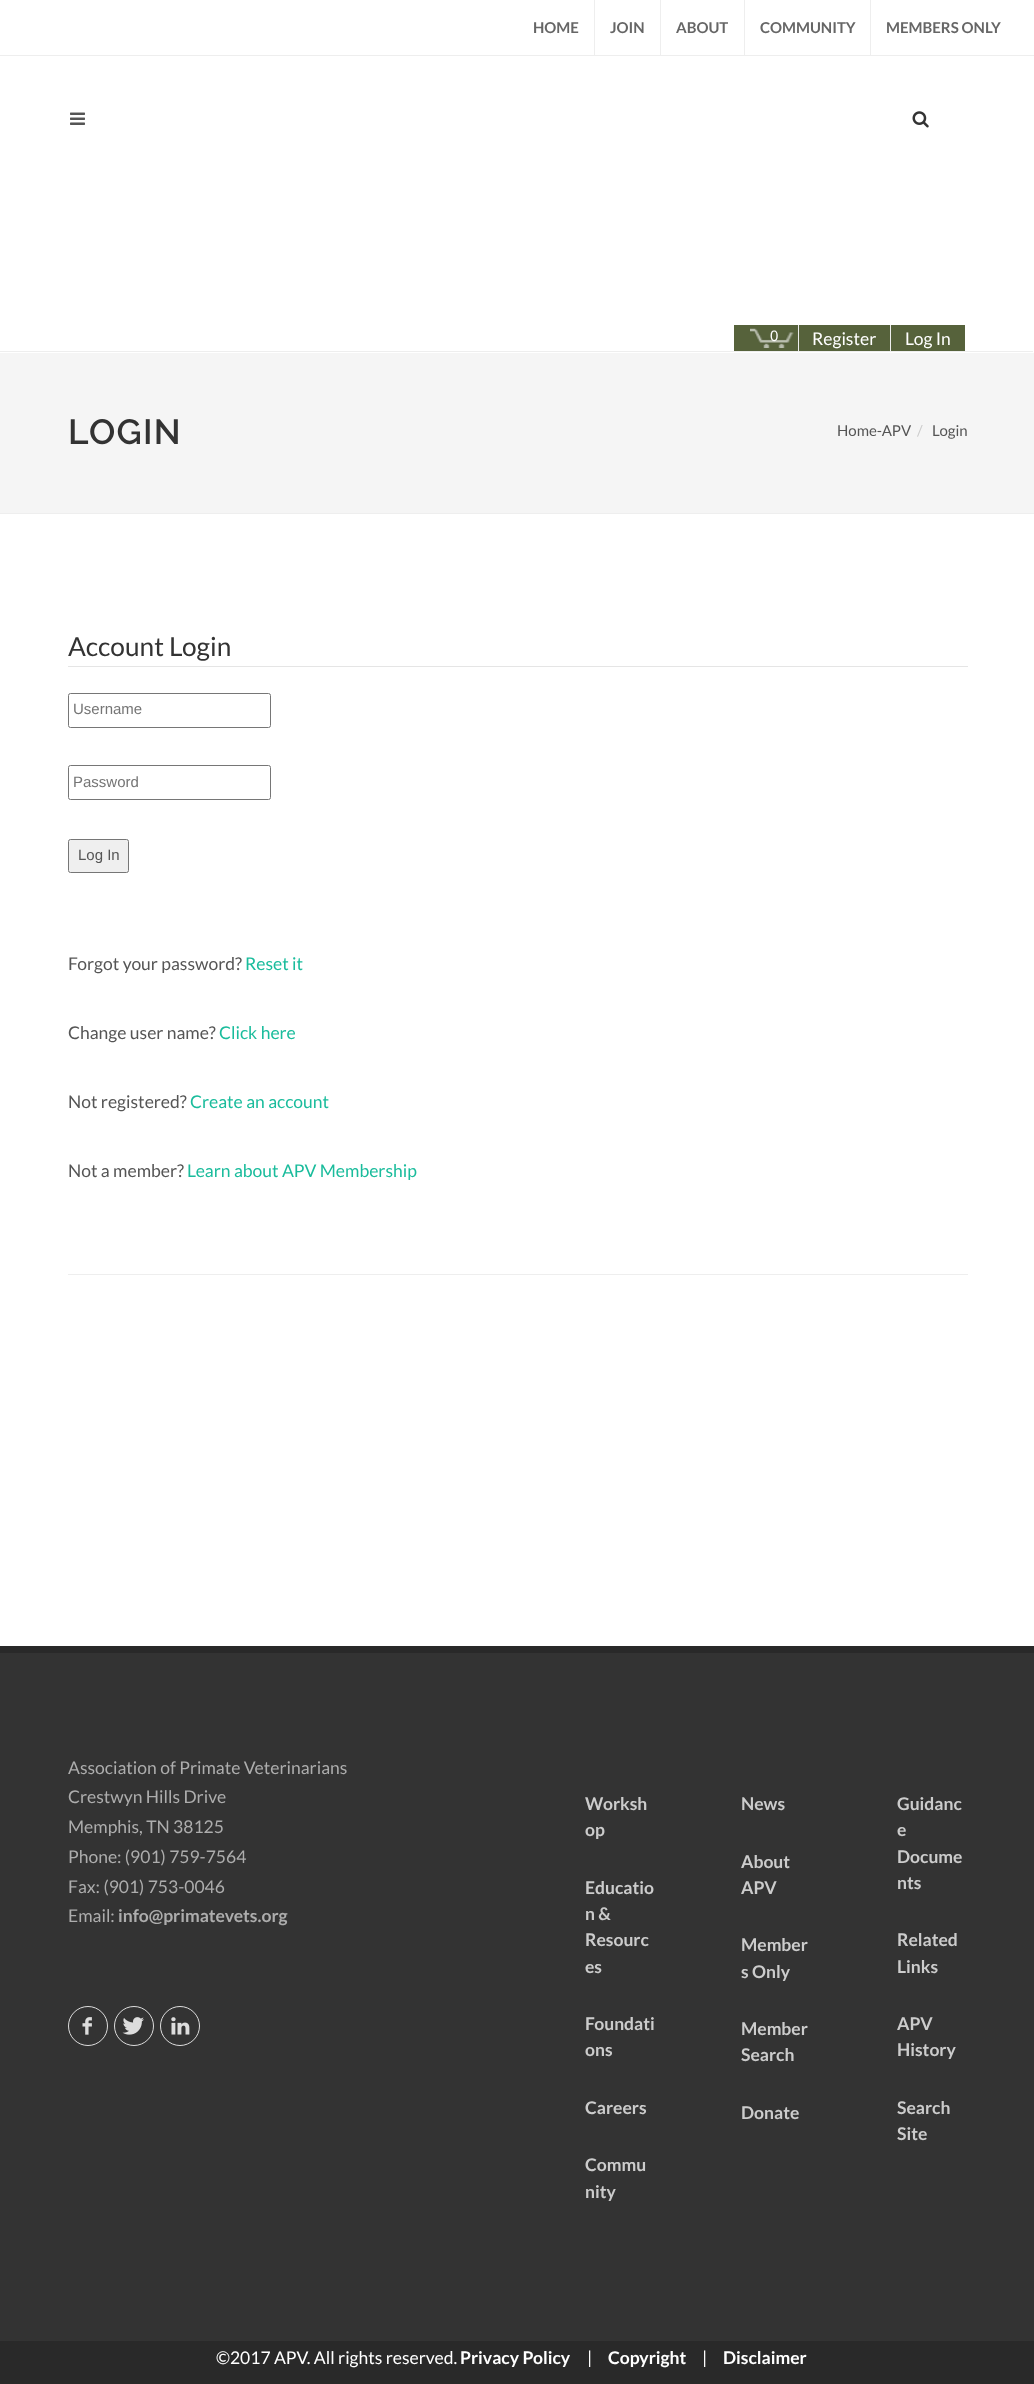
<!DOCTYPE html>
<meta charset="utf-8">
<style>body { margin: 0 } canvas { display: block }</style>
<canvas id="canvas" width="1034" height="2384"></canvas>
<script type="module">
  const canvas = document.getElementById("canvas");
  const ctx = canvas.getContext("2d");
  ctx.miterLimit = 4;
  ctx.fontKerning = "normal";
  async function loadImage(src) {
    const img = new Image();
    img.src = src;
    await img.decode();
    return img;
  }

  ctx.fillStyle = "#ffffff";
  ctx.fillRect(0, 0, 1034, 2384);
  ctx.fillStyle = "#eeeeee";
  ctx.fillRect(0, 55, 1034, 1);
  ctx.font = "bold 15px Lato";
  ctx.fillStyle = "#666666";
  ctx.fillText("HOME", 533, 33);
  ctx.fillStyle = "#eeeeee";
  ctx.fillRect(594, 0, 1, 55);
  ctx.fillStyle = "#666666";
  ctx.fillText("JOIN", 610, 33);
  ctx.fillStyle = "#eeeeee";
  ctx.fillRect(660, 0, 1, 55);
  ctx.fillStyle = "#666666";
  ctx.fillText("ABOUT", 676, 33);
  ctx.fillStyle = "#eeeeee";
  ctx.fillRect(744, 0, 1, 55);
  ctx.fillStyle = "#666666";
  ctx.fillText("COMMUNITY", 760, 33);
  ctx.fillStyle = "#eeeeee";
  ctx.fillRect(870, 0, 1, 55);
  ctx.fillStyle = "#666666";
  ctx.fillText("MEMBERS ONLY", 886, 33);
  ctx.fillStyle = "#eeeeee";
  ctx.fillRect(0, 351, 1033, 1);
  ctx.drawImage(await loadImage("img1.png"), 70, 112, 15, 13);
  ctx.drawImage(await loadImage("img2.png"), 912, 111, 17, 17);
  ctx.fillStyle = "#56623b";
  ctx.fillRect(734, 325, 231, 26);
  ctx.drawImage(await loadImage("img3.png"), 750, 328, 44, 20);
  ctx.font = "15px Liberation Sans";
  ctx.fillStyle = "#ffffff";
  ctx.fillText("0", 770, 341);
  ctx.fillStyle = "#eeeeee";
  ctx.fillRect(798, 325, 1, 26);
  ctx.font = "17.5px Lato";
  ctx.fillStyle = "#ffffff";
  ctx.fillText("Register", 812, 345);
  ctx.fillStyle = "#eeeeee";
  ctx.fillRect(890, 325, 1, 26);
  ctx.fillStyle = "#ffffff";
  ctx.fillText("Log In", 905, 345);
  ctx.fillStyle = "#f5f5f5";
  ctx.fillRect(0, 353, 1034, 160);
  ctx.fillStyle = "#eeeeee";
  ctx.fillRect(0, 513, 1034, 1);
  ctx.letterSpacing = "1.25px";
  ctx.font = "600 35px Raleway";
  ctx.fillStyle = "#333333";
  ctx.fillText("LOGIN", 68, 444);
  ctx.letterSpacing = "0px";
  ctx.font = "15px Lato";
  ctx.fillStyle = "#555555";
  ctx.fillText("Home-APV", 837, 436);
  ctx.fillStyle = "#cccccc";
  ctx.fillText("/", 917, 436);
  ctx.fillStyle = "#555555";
  ctx.fillText("Login", 932, 436);
  ctx.fillStyle = "#eeeeee";
  ctx.fillRect(68, 1274, 900, 1);
  ctx.fillStyle = "#e5e5e5";
  ctx.fillRect(68, 666, 900, 1);
  ctx.font = "26.25px Lato";
  ctx.fillStyle = "#333333";
  ctx.fillText("Account Login", 68, 656);
  ctx.beginPath();
  ctx.roundRect(68.5, 693.5, 202, 34, 2);
  ctx.strokeStyle = "#767676";
  ctx.stroke();
  ctx.font = "15px Liberation Sans";
  ctx.fillStyle = "#757575";
  ctx.fillText("Username", 73, 714);
  ctx.beginPath();
  ctx.roundRect(68.5, 765.5, 202, 34, 2);
  ctx.stroke();
  ctx.fillText("Password", 73, 787);
  ctx.fillStyle = "#efefef";
  ctx.beginPath();
  ctx.roundRect(68.5, 839.5, 60, 33, 2);
  ctx.fill();
  ctx.stroke();
  ctx.fillStyle = "#555555";
  ctx.fillText("Log In", 78, 860);
  ctx.font = "17.5px Lato";
  ctx.fillText("Forgot your password?", 68, 970);
  ctx.fillStyle = "#1abc9c";
  ctx.fillText("Reset it", 245, 970);
  ctx.fillStyle = "#555555";
  ctx.fillText("Change user name?", 68, 1039);
  ctx.fillStyle = "#1abc9c";
  ctx.fillText("Click here", 219, 1039);
  ctx.fillStyle = "#555555";
  ctx.fillText("Not registered?", 68, 1108);
  ctx.fillStyle = "#1abc9c";
  ctx.fillText("Create an account", 190, 1108);
  ctx.fillStyle = "#555555";
  ctx.fillText("Not a member?", 68, 1177);
  ctx.fillStyle = "#1abc9c";
  ctx.fillText("Learn about APV Membership", 187, 1177);
  ctx.fillStyle = "#333333";
  ctx.fillRect(0, 1653, 1034, 688);
  ctx.fillStyle = "#292929";
  ctx.fillRect(0, 1646, 1034, 7);
  ctx.fillStyle = "#adadad";
  ctx.fillText("Association of Primate Veterinarians", 68, 1774);
  ctx.fillText("Crestwyn Hills Drive", 68, 1803);
  ctx.fillText("Memphis, TN 38125", 68, 1833);
  ctx.fillText("Phone: (901) 759-7564", 68, 1863);
  ctx.fillText("Fax: (901) 753-0046", 68, 1893);
  ctx.fillText("Email:", 68, 1922);
  ctx.font = "bold 17.5px Lato";
  ctx.fillText("info@primatevets.org", 118, 1922);
  ctx.beginPath();
  ctx.arc(88, 2026, 19.5, 0, Math.PI * 2);
  ctx.strokeStyle = "#dddddd";
  ctx.stroke();
  ctx.drawImage(await loadImage("img4.png"), 82, 2017, 10, 18);
  ctx.beginPath();
  ctx.arc(134, 2026, 19.5, 0, Math.PI * 2);
  ctx.stroke();
  ctx.drawImage(await loadImage("img5.png"), 122, 2017, 22, 18);
  ctx.beginPath();
  ctx.arc(180, 2026, 19.5, 0, Math.PI * 2);
  ctx.stroke();
  ctx.drawImage(await loadImage("img6.png"), 171, 2017, 19, 18);
  ctx.fillStyle = "#cccccc";
  ctx.fillText("Worksh", 585, 1810);
  ctx.fillText("op", 585, 1836);
  ctx.fillText("Educatio", 585, 1894);
  ctx.fillText("n &", 585, 1920);
  ctx.fillText("Resourc", 585, 1946);
  ctx.fillText("es", 585, 1973);
  ctx.fillText("Foundati", 585, 2030);
  ctx.fillText("ons", 585, 2056);
  ctx.fillText("Careers", 585, 2114);
  ctx.fillText("Commu", 585, 2171);
  ctx.fillText("nity", 585, 2198);
  ctx.fillText("News", 741, 1810);
  ctx.fillText("About", 741, 1868);
  ctx.fillText("APV", 741, 1894);
  ctx.fillText("Member", 741, 1951);
  ctx.fillText("s Only", 741, 1978);
  ctx.fillText("Member", 741, 2035);
  ctx.fillText("Search", 741, 2061);
  ctx.fillText("Donate", 741, 2119);
  ctx.fillText("Guidanc", 897, 1810);
  ctx.fillText("e", 897, 1836);
  ctx.fillText("Docume", 897, 1863);
  ctx.fillText("nts", 897, 1889);
  ctx.fillText("Related", 897, 1946);
  ctx.fillText("Links", 897, 1973);
  ctx.fillText("APV", 897, 2030);
  ctx.fillText("History", 897, 2056);
  ctx.fillText("Search", 897, 2114);
  ctx.fillText("Site", 897, 2140);
  ctx.fillStyle = "#292929";
  ctx.fillRect(0, 2341, 1034, 43);
  ctx.font = "17.5px Lato";
  ctx.fillStyle = "#ffffff";
  ctx.fillText("©2017 APV. All rights reserved.", 216, 2364);
  ctx.font = "bold 17.5px Lato";
  ctx.fillText("Privacy Policy", 460, 2364);
  ctx.font = "17.5px Lato";
  ctx.fillText("|", 587, 2364);
  ctx.font = "bold 17.5px Lato";
  ctx.fillText("Copyright", 608, 2364);
  ctx.font = "17.5px Lato";
  ctx.fillText("|", 702, 2364);
  ctx.font = "bold 17.5px Lato";
  ctx.fillText("Disclaimer", 723, 2364);
</script>
